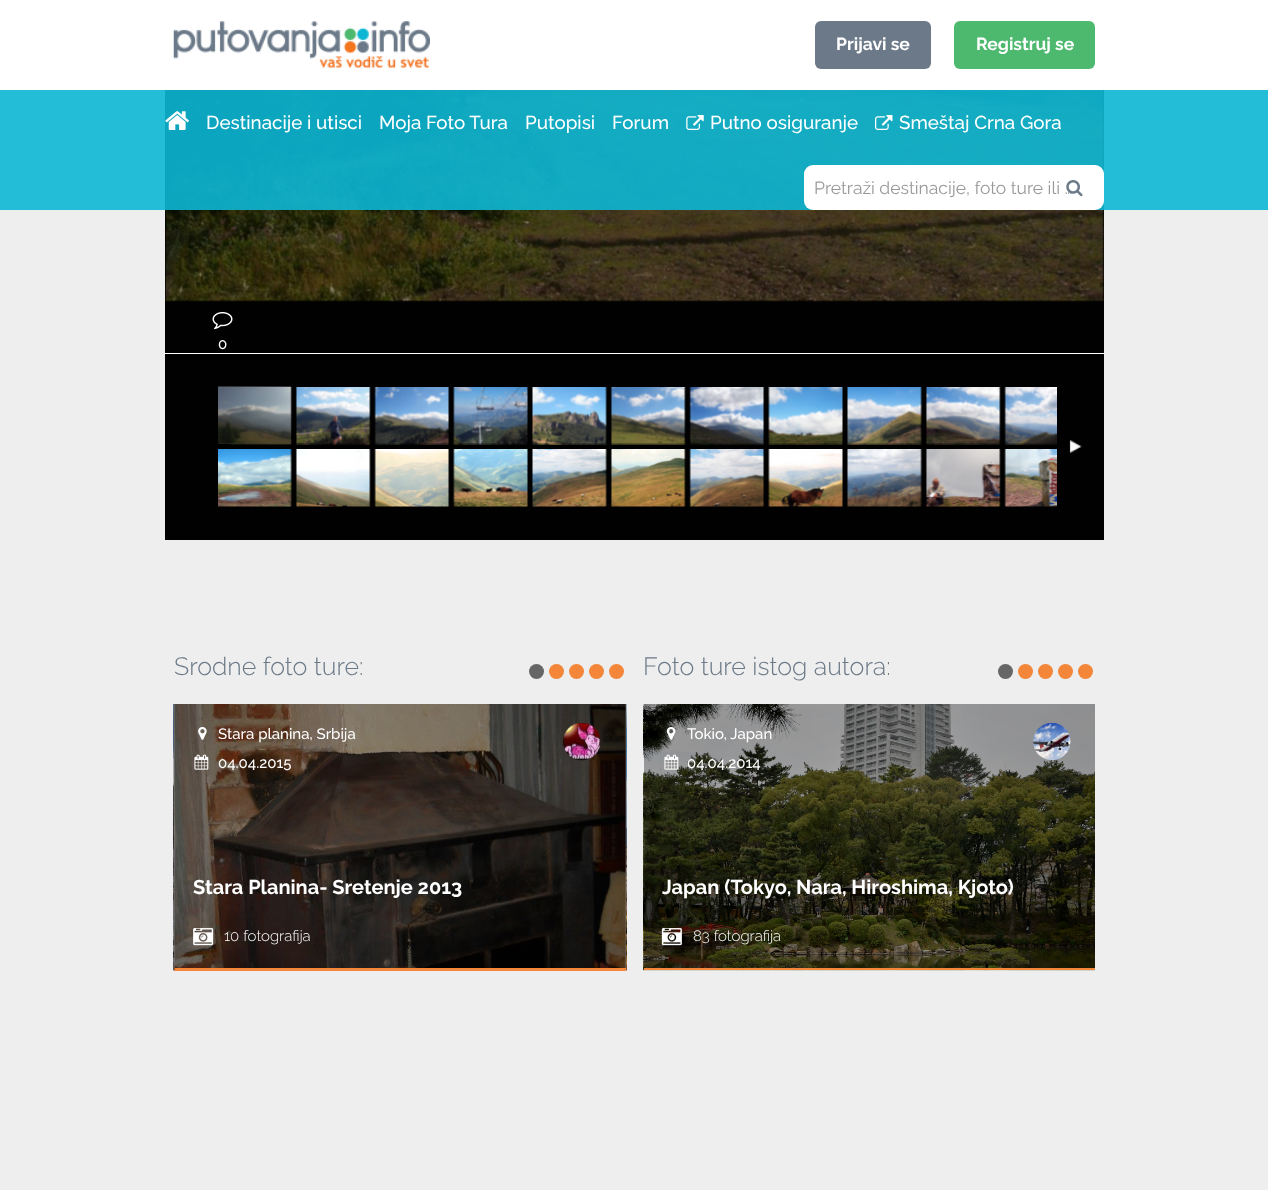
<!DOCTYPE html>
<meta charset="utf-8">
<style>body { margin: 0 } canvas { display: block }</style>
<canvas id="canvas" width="1268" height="1190"></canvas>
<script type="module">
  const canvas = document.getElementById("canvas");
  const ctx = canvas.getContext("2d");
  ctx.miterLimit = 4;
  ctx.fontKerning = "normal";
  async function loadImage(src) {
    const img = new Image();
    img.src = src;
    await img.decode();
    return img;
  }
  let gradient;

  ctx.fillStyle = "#eeeeee";
  ctx.fillRect(0, 0, 1268, 1190);
  ctx.fillStyle = "#ffffff";
  ctx.fillRect(0, 0, 1268, 90);
  ctx.drawImage(await loadImage("img1.png"), 173, 21, 257, 47);
  ctx.fillStyle = "#6b7988";
  ctx.beginPath();
  ctx.roundRect(815, 21, 116, 48, 6);
  ctx.fill();
  ctx.font = "bold 17.5px Raleway";
  ctx.fillStyle = "#ffffff";
  ctx.fillText("Prijavi se", 836, 50);
  ctx.fillStyle = "#4db96e";
  ctx.beginPath();
  ctx.roundRect(954, 21, 141, 48, 6);
  ctx.fill();
  ctx.fillStyle = "#ffffff";
  ctx.fillText("Registruj se", 976, 50);
  ctx.fillStyle = "#010101";
  ctx.fillRect(165, 90, 939, 263);
  ctx.drawImage(await loadImage("img6.png"), 165, 90, 939, 212);
  ctx.fillStyle = "rgba(13, 183, 212, 0.9)";
  ctx.fillRect(0, 90, 1268, 120);
  ctx.drawImage(await loadImage("img2.png"), 165, 111, 24, 19);
  ctx.font = "500 18.75px Raleway";
  ctx.fillStyle = "#ffffff";
  ctx.fillText("Destinacije i utisci", 206, 129);
  ctx.fillText("Moja Foto Tura", 379, 129);
  ctx.fillText("Putopisi", 525, 129);
  ctx.fillText("Forum", 612, 129);
  ctx.drawImage(await loadImage("img3.png"), 686, 115, 18, 15);
  ctx.fillText("Putno osiguranje", 710, 129);
  ctx.drawImage(await loadImage("img4.png"), 875, 115, 18, 15);
  ctx.fillText("Smeštaj Crna Gora", 899, 129);
  ctx.beginPath();
  ctx.roundRect(804, 165, 300, 45, 9);
  ctx.fill();
  ctx.font = "17.5px Raleway";
  ctx.fillStyle = "#999999";
  ctx.fillText("Pretraži destinacije, foto ture ili …", 814, 194);
  ctx.drawImage(await loadImage("img5.png"), 1066, 180, 17, 17);
  ctx.drawImage(await loadImage("img7.png"), 212, 312, 21, 18);
  ctx.font = "500 15px Raleway";
  ctx.fillStyle = "#ffffff";
  ctx.fillText("0", 218, 349);
  ctx.fillStyle = "#010101";
  ctx.fillRect(165, 354, 939, 186);
  ctx.fillStyle = "#ffffff";
  ctx.fillRect(165, 353, 939, 1);
  ctx.fillStyle = "#333333";
  ctx.fillRect(218, 386, 73, 58);
  ctx.drawImage(await loadImage("img8.png"), 218, 387, 74, 58);
  ctx.drawImage(await loadImage("img9.png"), 295, 387, 76, 58);
  ctx.drawImage(await loadImage("img10.png"), 374, 387, 76, 58);
  ctx.drawImage(await loadImage("img11.png"), 453, 387, 75, 58);
  ctx.drawImage(await loadImage("img12.png"), 532, 387, 75, 58);
  ctx.drawImage(await loadImage("img13.png"), 610, 387, 76, 58);
  ctx.drawImage(await loadImage("img14.png"), 689, 387, 76, 58);
  ctx.drawImage(await loadImage("img15.png"), 768, 387, 75, 58);
  ctx.drawImage(await loadImage("img16.png"), 847, 387, 75, 58);
  ctx.drawImage(await loadImage("img17.png"), 925, 387, 76, 58);
  ctx.drawImage(await loadImage("img18.png"), 1004, 387, 53, 58);
  ctx.drawImage(await loadImage("img19.png"), 218, 449, 74, 58);
  ctx.drawImage(await loadImage("img20.png"), 295, 449, 76, 58);
  ctx.drawImage(await loadImage("img21.png"), 374, 449, 76, 58);
  ctx.drawImage(await loadImage("img22.png"), 453, 449, 75, 58);
  ctx.drawImage(await loadImage("img23.png"), 532, 449, 75, 58);
  ctx.drawImage(await loadImage("img24.png"), 610, 449, 76, 58);
  ctx.drawImage(await loadImage("img25.png"), 689, 449, 76, 58);
  ctx.drawImage(await loadImage("img26.png"), 768, 449, 75, 58);
  ctx.drawImage(await loadImage("img27.png"), 847, 449, 75, 58);
  ctx.drawImage(await loadImage("img28.png"), 925, 449, 76, 58);
  ctx.drawImage(await loadImage("img29.png"), 1004, 449, 53, 58);
  ctx.drawImage(await loadImage("img30.png"), 1069, 440, 13, 13);
  ctx.font = "300 25px Raleway";
  ctx.fillStyle = "#6b7987";
  ctx.fillText("Srodne foto ture:", 174, 675);
  ctx.fillStyle = "#666666";
  ctx.beginPath();
  ctx.arc(536.5, 671.5, 7.5, 0, Math.PI * 2);
  ctx.fill();
  ctx.fillStyle = "#f38639";
  ctx.beginPath();
  ctx.arc(556.5, 671.5, 7.5, 0, Math.PI * 2);
  ctx.fill();
  ctx.beginPath();
  ctx.arc(576.5, 671.5, 7.5, 0, Math.PI * 2);
  ctx.fill();
  ctx.beginPath();
  ctx.arc(596.5, 671.5, 7.5, 0, Math.PI * 2);
  ctx.fill();
  ctx.beginPath();
  ctx.arc(616.5, 671.5, 7.5, 0, Math.PI * 2);
  ctx.fill();
  ctx.drawImage(await loadImage("img31.png"), 173, 704, 1, 267);
  ctx.fillStyle = "#f4873a";
  ctx.fillRect(174, 968, 1, 3);
  ctx.drawImage(await loadImage("img32.png"), 174, 704, 452, 267);
  gradient = ctx.createRadialGradient(-52, 1438.28, 0, -52, 1438.28, 320);
  gradient.addColorStop(0, "rgba(0, 0, 0, 0.33)");
  gradient.addColorStop(1, "rgba(0, 0, 0, 0.38)");
  ctx.fillStyle = gradient;
  ctx.beginPath();
  ctx.rect(174, 704, 1, 264);
  ctx.save();
  ctx.clip();
  ctx.scale(1, 186 / 320);
  ctx.fillRect(0, 0, 1268, 2048);
  ctx.restore();
  ctx.fillStyle = "#f4873a";
  ctx.fillRect(175, 968, 451, 3);
  gradient = ctx.createRadialGradient(400, 1433.78, 0, 400, 1433.78, 319);
  gradient.addColorStop(0, "rgba(0, 0, 0, 0.33)");
  gradient.addColorStop(1, "rgba(0, 0, 0, 0.38)");
  ctx.fillStyle = gradient;
  ctx.beginPath();
  ctx.rect(175, 704, 451, 264);
  ctx.save();
  ctx.clip();
  ctx.scale(1, 186 / 319);
  ctx.fillRect(0, 0, 1268, 2041);
  ctx.restore();
  ctx.drawImage(await loadImage("img33.png"), 198, 727, 9, 13);
  ctx.font = "500 15px Raleway";
  ctx.fillStyle = "#ffffff";
  ctx.fillText("Stara planina, Srbija", 218, 739);
  ctx.drawImage(await loadImage("img34.png"), 194, 754, 15, 16);
  ctx.fillText("04.04.2015", 218, 768);
  ctx.drawImage(await loadImage("img35.png"), 563, 723, 38, 38);
  ctx.font = "bold 20px Raleway";
  ctx.fillText("Stara Planina- Sretenje 2013", 193, 894);
  ctx.drawImage(await loadImage("img36.png"), 193, 928, 21, 18);
  ctx.font = "300 15px Raleway";
  ctx.fillText("10 fotografija", 224, 941);
  ctx.drawImage(await loadImage("img37.png"), 626, 704, 1, 267);
  ctx.font = "300 25px Raleway";
  ctx.fillStyle = "#6b7987";
  ctx.fillText("Foto ture istog autora:", 643, 675);
  ctx.fillStyle = "#666666";
  ctx.beginPath();
  ctx.arc(1005.5, 671.5, 7.5, 0, Math.PI * 2);
  ctx.fill();
  ctx.fillStyle = "#f38639";
  ctx.beginPath();
  ctx.arc(1025.5, 671.5, 7.5, 0, Math.PI * 2);
  ctx.fill();
  ctx.beginPath();
  ctx.arc(1045.5, 671.5, 7.5, 0, Math.PI * 2);
  ctx.fill();
  ctx.beginPath();
  ctx.arc(1065.5, 671.5, 7.5, 0, Math.PI * 2);
  ctx.fill();
  ctx.beginPath();
  ctx.arc(1085.5, 671.5, 7.5, 0, Math.PI * 2);
  ctx.fill();
  ctx.drawImage(await loadImage("img38.png"), 643, 704, 452, 267);
  ctx.fillStyle = "#f4873a";
  ctx.fillRect(644, 968, 451, 2);
  ctx.drawImage(await loadImage("img39.png"), 666, 727, 10, 13);
  ctx.font = "500 15px Raleway";
  ctx.fillStyle = "#ffffff";
  ctx.fillText("Tokio, Japan", 687, 739);
  ctx.drawImage(await loadImage("img40.png"), 664, 754, 15, 16);
  ctx.fillText("04.04.2014", 687, 768);
  ctx.drawImage(await loadImage("img41.png"), 1033, 722, 38, 39);
  ctx.font = "bold 20px Raleway";
  ctx.fillText("Japan (Tokyo, Nara, Hiroshima, Kjoto)", 662, 894);
  ctx.drawImage(await loadImage("img42.png"), 661, 928, 21, 18);
  ctx.font = "300 15px Raleway";
  ctx.fillText("83 fotografija", 693, 941);
</script>
